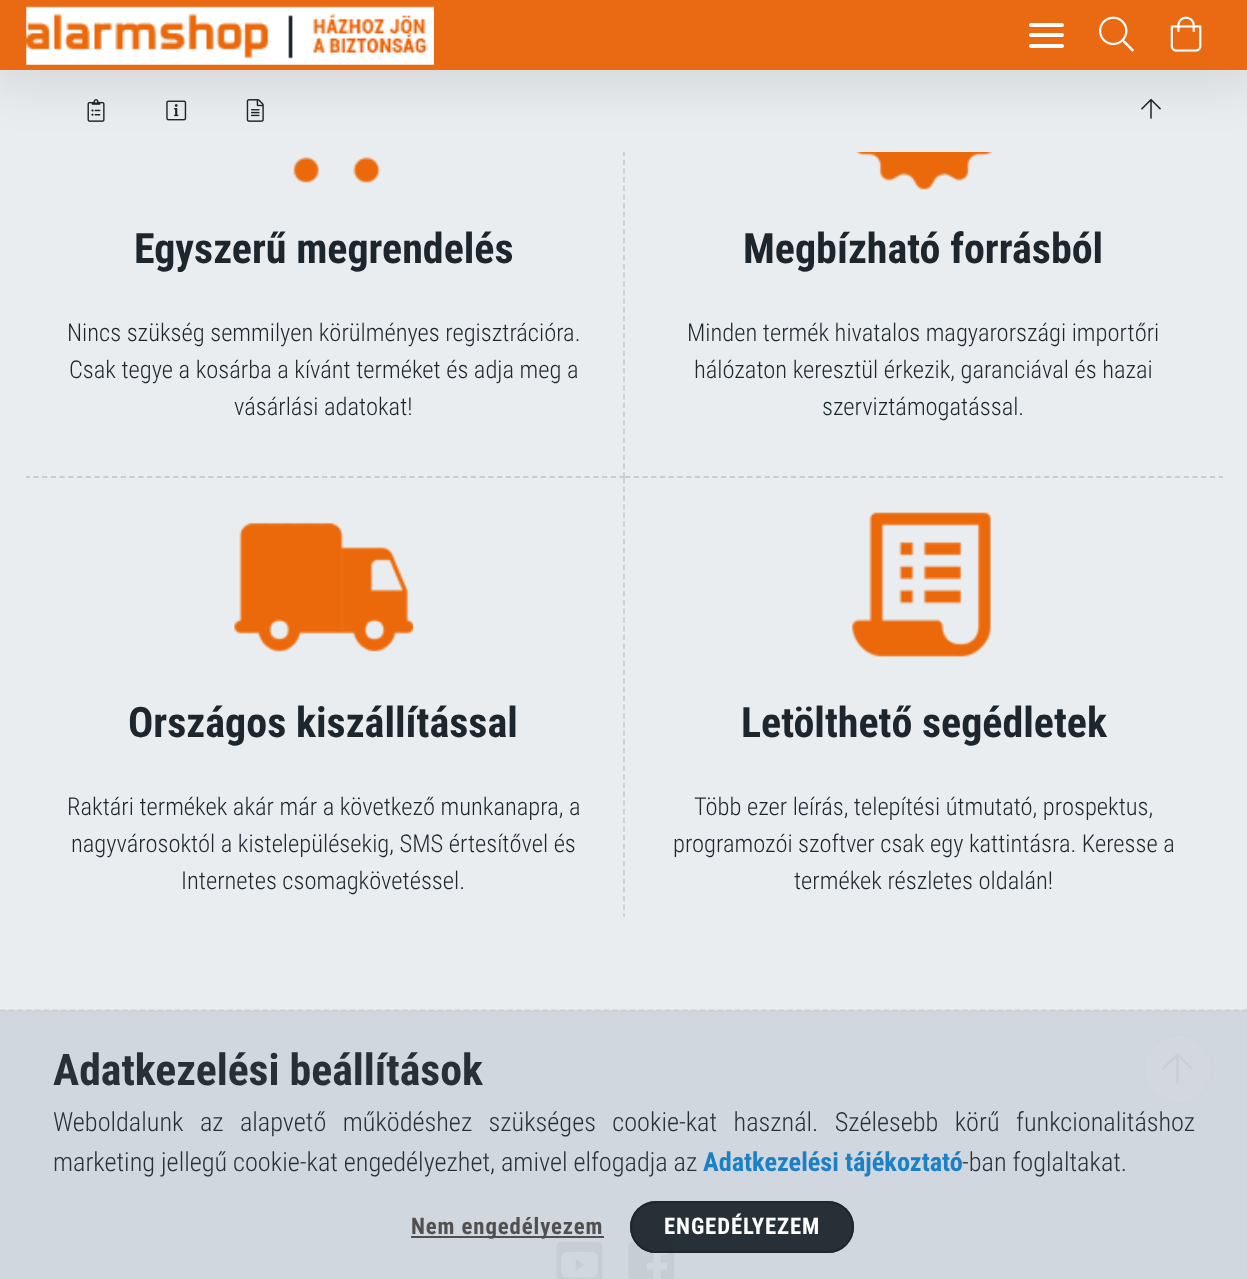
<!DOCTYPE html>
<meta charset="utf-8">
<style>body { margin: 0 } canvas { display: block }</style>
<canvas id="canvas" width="1247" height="1279"></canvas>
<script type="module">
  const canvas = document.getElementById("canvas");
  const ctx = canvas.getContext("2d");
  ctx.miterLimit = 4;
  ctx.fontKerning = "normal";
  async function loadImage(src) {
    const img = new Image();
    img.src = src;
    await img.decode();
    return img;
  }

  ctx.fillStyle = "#eaedf0";
  ctx.fillRect(0, 0, 1247, 1279);
  ctx.beginPath();
  ctx.moveTo(624, 3.5);
  ctx.lineTo(624, 478);
  ctx.strokeStyle = "#cccccc";
  ctx.lineWidth = 1.8;
  ctx.setLineDash([5.25, 3.43]);
  ctx.stroke();
  ctx.beginPath();
  ctx.roundRect(26, 70, 1196, 82, [0, 0, 9, 9]);
  ctx.fill();
  ctx.drawImage(await loadImage("img4.png"), 87, 99, 18, 23);
  ctx.drawImage(await loadImage("img5.png"), 166, 100, 21, 21);
  ctx.drawImage(await loadImage("img6.png"), 246, 99, 18, 23);
  ctx.drawImage(await loadImage("img7.png"), 1141, 98, 20, 21);
  ctx.drawImage(await loadImage("img8.png"), 293, 157, 88, 26);
  ctx.drawImage(await loadImage("img9.png"), 855, 152, 138, 38);
  ctx.fillStyle = "rgba(0, 0, 0, 0.1)";
  ctx.filter = "blur(26px)";
  ctx.beginPath();
  ctx.rect(-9, -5, 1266, 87);
  ctx.fill();
  ctx.filter = "none";
  ctx.fillStyle = "#ea6913";
  ctx.fillRect(0, 0, 1247, 70);
  ctx.drawImage(await loadImage("img1.png"), 26, 6, 408, 59);
  ctx.fillStyle = "#ffffff";
  ctx.beginPath();
  ctx.roundRect(1029, 23, 35, 4, 2);
  ctx.fill();
  ctx.beginPath();
  ctx.roundRect(1029, 33, 35, 4, 2);
  ctx.fill();
  ctx.beginPath();
  ctx.roundRect(1029, 44, 35, 4, 2);
  ctx.fill();
  ctx.drawImage(await loadImage("img2.png"), 1099, 16, 35, 36);
  ctx.drawImage(await loadImage("img3.png"), 1170, 16, 32, 36);
  ctx.save();
  ctx.beginPath();
  ctx.rect(26, 5, 1196, 912);
  ctx.clip();
  ctx.beginPath();
  ctx.moveTo(24.5, 477);
  ctx.lineTo(625, 477);
  ctx.setLineDash([5.25, 3.5]);
  ctx.stroke();
  ctx.restore();
  ctx.font = "bold 42px Roboto Condensed";
  ctx.fillStyle = "#1d262d";
  ctx.fillText("Egyszerű megrendelés", 134, 263);
  ctx.font = "300 24.5px Roboto Condensed";
  ctx.fillText("Nincs szükség semmilyen körülményes regisztrációra.", 67, 341);
  ctx.fillText("Csak tegye a kosárba a kívánt terméket és adja meg a", 69, 378);
  ctx.fillText("vásárlási adatokat!", 234, 415);
  ctx.beginPath();
  ctx.moveTo(625, 477);
  ctx.lineTo(1223, 477);
  ctx.setLineDash([5.25, 3.48]);
  ctx.stroke();
  ctx.font = "bold 42px Roboto Condensed";
  ctx.fillText("Megbízható forrásból", 743, 263);
  ctx.font = "300 24.5px Roboto Condensed";
  ctx.fillText("Minden termék hivatalos magyarországi importőri", 687, 341);
  ctx.fillText("hálózaton keresztül érkezik, garanciával és hazai", 694, 378);
  ctx.fillText("szerviztámogatással.", 822, 415);
  ctx.save();
  ctx.beginPath();
  ctx.rect(26, 5, 1196, 912);
  ctx.clip();
  ctx.beginPath();
  ctx.moveTo(624, 478);
  ctx.lineTo(624, 919);
  ctx.setLineDash([5.25, 3.46]);
  ctx.stroke();
  ctx.restore();
  ctx.drawImage(await loadImage("img10.png"), 234, 522, 179, 130);
  ctx.font = "bold 42px Roboto Condensed";
  ctx.fillText("Országos kiszállítással", 128, 737);
  ctx.font = "300 24.5px Roboto Condensed";
  ctx.fillText("Raktári termékek akár már a következő munkanapra, a", 67, 815);
  ctx.fillText("nagyvárosoktól a kistelepülésekig, SMS értesítővel és", 71, 852);
  ctx.fillText("Internetes csomagkövetéssel.", 181, 889);
  ctx.drawImage(await loadImage("img11.png"), 851, 512, 140, 145);
  ctx.font = "bold 42px Roboto Condensed";
  ctx.fillText("Letölthető segédletek", 741, 737);
  ctx.font = "300 24.5px Roboto Condensed";
  ctx.fillText("Több ezer leírás, telepítési útmutató, prospektus,", 694, 815);
  ctx.fillText("programozói szoftver csak egy kattintásra. Keresse a", 673, 852);
  ctx.fillText("termékek részletes oldalán!", 794, 889);
  ctx.drawImage(await loadImage("img12.png"), 556, 1241, 47, 38);
  ctx.drawImage(await loadImage("img13.png"), 628, 1241, 47, 38);
  ctx.fillStyle = "#fbfbfc";
  ctx.beginPath();
  ctx.arc(1178, 1069, 34, 0, Math.PI * 2);
  ctx.fill();
  ctx.lineWidth = 2;
  ctx.setLineDash([]);
  ctx.stroke();
  ctx.drawImage(await loadImage("img14.png"), 1162, 1053, 31, 31);
  ctx.fillStyle = "rgba(208, 214, 220, 0.95)";
  ctx.fillRect(0, 1010, 1247, 269);
  ctx.beginPath();
  ctx.moveTo(0, 1010.5);
  ctx.lineTo(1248, 1010.5);
  ctx.strokeStyle = "rgba(204, 204, 204, 0.95)";
  ctx.lineWidth = 1.8;
  ctx.setLineDash([5.25, 3.5]);
  ctx.stroke();
  ctx.font = "bold 43.75px Roboto Condensed";
  ctx.fillStyle = "#273037";
  ctx.fillText("Adatkezelési beállítások", 53, 1085);
  ctx.wordSpacing = "10.5px";
  ctx.font = "300 26.25px Roboto Condensed";
  ctx.fillText("Weboldalunk az alapvető működéshez szükséges cookie-kat használ. Szélesebb körű funkcionalitáshoz", 53, 1131);
  ctx.wordSpacing = "0px";
  ctx.fillText("marketing jellegű cookie-kat engedélyezhet, amivel elfogadja az", 53, 1171);
  ctx.font = "bold 26.25px Roboto Condensed";
  ctx.fillStyle = "#1c80c5";
  ctx.fillText("Adatkezelési tájékoztató", 703, 1171);
  ctx.font = "300 26.25px Roboto Condensed";
  ctx.fillStyle = "#273037";
  ctx.fillText("-ban foglaltakat.", 962, 1171);
  ctx.fillStyle = "#505050";
  ctx.fillRect(411, 1236, 193, 2);
  ctx.letterSpacing = "0.9px";
  ctx.font = "bold 22.75px Roboto Condensed";
  ctx.fillText("Nem engedélyezem", 411, 1234);
  ctx.fillStyle = "rgba(29, 38, 45, 0.95)";
  ctx.beginPath();
  ctx.roundRect(630, 1201, 224, 52, 26);
  ctx.fill();
  ctx.beginPath();
  ctx.roundRect(631, 1202, 222, 50, 25);
  ctx.strokeStyle = "rgba(29, 38, 45, 0.95)";
  ctx.lineWidth = 2;
  ctx.setLineDash([]);
  ctx.stroke();
  ctx.fillStyle = "#fefefe";
  ctx.fillText("ENGEDÉLYEZEM", 664, 1234);
</script>
